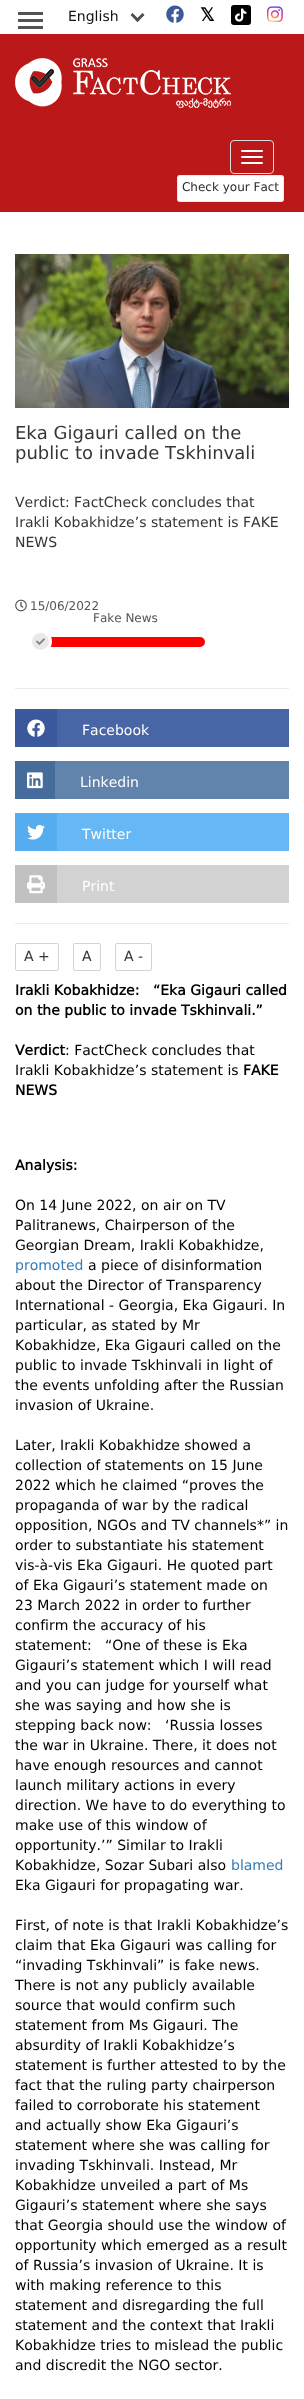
<!DOCTYPE html>
<meta charset="utf-8">
<style>body { margin: 0 } canvas { display: block }</style>
<canvas id="canvas" width="304" height="2399"></canvas>
<script type="module">
  const canvas = document.getElementById("canvas");
  const ctx = canvas.getContext("2d");
  ctx.miterLimit = 4;
  ctx.fontKerning = "none";
  async function loadImage(src) {
    const img = new Image();
    img.src = src;
    await img.decode();
    return img;
  }

  ctx.fillStyle = "#ffffff";
  ctx.fillRect(0, 0, 304, 2399);
  ctx.fillStyle = "#515455";
  ctx.fillRect(18, 12, 25, 3);
  ctx.fillRect(18, 19, 25, 3);
  ctx.fillRect(18, 26, 25, 3);
  ctx.font = "14px DejaVu Sans";
  ctx.fillStyle = "#111112";
  ctx.fillText("English", 68, 21);
  ctx.fillStyle = "#4c4c4c";
  ctx.beginPath();
  ctx.moveTo(137.5, 22);
  ctx.lineTo(130.5, 15);
  ctx.lineTo(132.5, 13);
  ctx.lineTo(139.5, 20);
  ctx.closePath();
  ctx.fill();
  ctx.beginPath();
  ctx.moveTo(137.5, 22);
  ctx.lineTo(135.5, 20);
  ctx.lineTo(142.5, 13);
  ctx.lineTo(144.5, 15);
  ctx.closePath();
  ctx.fill();
  ctx.drawImage(await loadImage("img1.png"), 166, 5, 18, 18);
  ctx.font = "bold 18px DejaVu Sans";
  ctx.fillStyle = "#000000";
  ctx.fillText("𝕏", 200, 21);
  ctx.beginPath();
  ctx.roundRect(231, 5, 20, 20, 3);
  ctx.fill();
  ctx.drawImage(await loadImage("img2.png"), 235, 8, 12, 14);
  ctx.drawImage(await loadImage("img3.png"), 267, 6, 16, 17);
  ctx.fillStyle = "#bb1919";
  ctx.fillRect(0, 34, 304, 178);
  ctx.drawImage(await loadImage("img4.png"), 15, 58, 216, 50);
  ctx.beginPath();
  ctx.roundRect(230.5, 140.5, 43, 33, 3.5);
  ctx.strokeStyle = "#dddddd";
  ctx.stroke();
  ctx.fillStyle = "#ffffff";
  ctx.beginPath();
  ctx.roundRect(241, 150, 22, 2, 1);
  ctx.fill();
  ctx.beginPath();
  ctx.roundRect(241, 156, 22, 2, 1);
  ctx.fill();
  ctx.beginPath();
  ctx.roundRect(241, 162, 22, 2, 1);
  ctx.fill();
  ctx.beginPath();
  ctx.roundRect(177, 175, 107, 27, 3);
  ctx.fill();
  ctx.beginPath();
  ctx.roundRect(177.5, 175.5, 106, 26, 2.5);
  ctx.strokeStyle = "rgba(122, 122, 122, 0.15)";
  ctx.stroke();
  ctx.font = "12px DejaVu Sans";
  ctx.fillStyle = "#2c2c2c";
  ctx.fillText("Check your Fact", 182, 191);
  ctx.fillStyle = "#ebebeb";
  ctx.fillRect(15, 688, 274, 1);
  ctx.drawImage(await loadImage("img5.png"), 15, 254, 274, 154);
  ctx.font = "18px DejaVu Sans";
  ctx.fillStyle = "#373435";
  ctx.fillText("Eka Gigauri called on the", 15, 439);
  ctx.fillText("public to invade Tskhinvali", 15, 459);
  ctx.font = "14px DejaVu Sans";
  ctx.fillText("Verdict: FactCheck concludes that", 15, 507);
  ctx.fillText("Irakli Kobakhidze’s statement is FAKE", 15, 527);
  ctx.fillText("NEWS", 15, 547);
  ctx.drawImage(await loadImage("img6.png"), 15, 599, 12, 13);
  ctx.font = "12px DejaVu Sans";
  ctx.fillStyle = "#555555";
  ctx.fillText("15/06/2022", 30, 610);
  ctx.fillText("Fake News", 93, 622);
  ctx.fillStyle = "#ff0000";
  ctx.beginPath();
  ctx.roundRect(45, 637, 160, 10, 5);
  ctx.fill();
  ctx.fillStyle = "#e9e9e9";
  ctx.beginPath();
  ctx.arc(40.5, 641.5, 10, 0, Math.PI * 2);
  ctx.fill();
  ctx.strokeStyle = "#ffffff";
  ctx.lineWidth = 3;
  ctx.stroke();
  ctx.drawImage(await loadImage("img7.png"), 36, 638, 9, 7);
  ctx.fillStyle = "#ebebeb";
  ctx.fillRect(15, 923, 274, 1);
  ctx.fillStyle = "#4865a5";
  ctx.fillRect(57, 709, 232, 38);
  ctx.fillStyle = "#3a589b";
  ctx.fillRect(15, 709, 42, 38);
  ctx.drawImage(await loadImage("img8.png"), 27, 719, 18, 18);
  ctx.font = "14px DejaVu Sans";
  ctx.fillStyle = "#ffffff";
  ctx.fillText("Facebook", 82, 735);
  ctx.fillStyle = "#6183ac";
  ctx.fillRect(55, 761, 234, 38);
  ctx.fillStyle = "#466c9c";
  ctx.fillRect(15, 761, 40, 38);
  ctx.drawImage(await loadImage("img9.png"), 27, 772, 16, 17);
  ctx.fillStyle = "#ffffff";
  ctx.fillText("Linkedin", 80, 787);
  ctx.fillStyle = "#66b7f5";
  ctx.fillRect(57, 813, 232, 38);
  ctx.fillStyle = "#55acee";
  ctx.fillRect(15, 813, 42, 38);
  ctx.drawImage(await loadImage("img10.png"), 27, 824, 18, 16);
  ctx.fillStyle = "#ffffff";
  ctx.fillText("Twitter", 82, 839);
  ctx.fillStyle = "#d2d2d2";
  ctx.fillRect(57, 865, 232, 38);
  ctx.fillStyle = "#c1c1c1";
  ctx.fillRect(15, 865, 42, 38);
  ctx.drawImage(await loadImage("img11.png"), 27, 875, 18, 19);
  ctx.fillStyle = "#ffffff";
  ctx.fillText("Print", 82, 891);
  ctx.beginPath();
  ctx.roundRect(15.5, 943.5, 43, 27, 1.5);
  ctx.strokeStyle = "#d4d4d4";
  ctx.lineWidth = 1;
  ctx.stroke();
  ctx.fillStyle = "#373435";
  ctx.fillText("A +", 24, 961);
  ctx.beginPath();
  ctx.roundRect(73.5, 943.5, 27, 27, 1.5);
  ctx.stroke();
  ctx.fillText("A", 82, 961);
  ctx.beginPath();
  ctx.roundRect(115.5, 943.5, 36, 27, 1.5);
  ctx.stroke();
  ctx.fillText("A -", 124, 961);
  ctx.font = "bold 14px 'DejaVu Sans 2'";
  ctx.fillStyle = "#000000";
  ctx.fillText("Irakli Kobakhidze:", 15, 995);
  ctx.fillText("“Eka Gigauri called", 153, 995);
  ctx.fillText("on the public to invade Tskhinvali.”", 15, 1015);
  ctx.fillText("Verdict", 15, 1055);
  ctx.font = "14px DejaVu Sans";
  ctx.fillText(": FactCheck concludes that", 65, 1055);
  ctx.fillText("Irakli Kobakhidze’s statement is", 15, 1075);
  ctx.font = "bold 14px 'DejaVu Sans 2'";
  ctx.fillText("FAKE", 243, 1075);
  ctx.fillText("NEWS", 15, 1095);
  ctx.fillText("Analysis:", 15, 1170);
  ctx.font = "14px DejaVu Sans";
  ctx.fillText("On 14 June 2022, on air on TV", 15, 1210);
  ctx.fillText("Palitranews, Chairperson of the", 15, 1230);
  ctx.fillText("Georgian Dream, Irakli Kobakhidze,", 15, 1250);
  ctx.fillStyle = "#337ab7";
  ctx.fillText("promoted", 15, 1270);
  ctx.fillStyle = "#000000";
  ctx.fillText("a piece of disinformation", 88, 1270);
  ctx.fillText("about the Director of Transparency", 15, 1290);
  ctx.fillText("International - Georgia, Eka Gigauri. In", 15, 1310);
  ctx.fillText("particular, as stated by Mr", 15, 1330);
  ctx.fillText("Kobakhidze, Eka Gigauri called on the", 15, 1350);
  ctx.fillText("public to invade Tskhinvali in light of", 15, 1370);
  ctx.fillText("the events unfolding after the Russian", 15, 1390);
  ctx.fillText("invasion of Ukraine.", 15, 1410);
  ctx.fillText("Later, Irakli Kobakhidze showed a", 15, 1450);
  ctx.fillText("collection of statements on 15 June", 15, 1470);
  ctx.fillText("2022 which he claimed “proves the", 15, 1490);
  ctx.fillText("propaganda of war by the radical", 15, 1510);
  ctx.fillText("opposition, NGOs and TV channels*” in", 15, 1530);
  ctx.fillText("order to substantiate his statement", 15, 1550);
  ctx.fillText("vis-à-vis Eka Gigauri. He quoted part", 15, 1570);
  ctx.fillText("of Eka Gigauri’s statement made on", 15, 1590);
  ctx.fillText("23 March 2022 in order to further", 15, 1610);
  ctx.fillText("confirm the accuracy of his", 15, 1630);
  ctx.fillText("statement:", 15, 1650);
  ctx.fillText("“One of these is Eka", 105, 1650);
  ctx.fillText("Gigauri’s statement which I will read", 15, 1670);
  ctx.fillText("and you can judge for yourself what", 15, 1690);
  ctx.fillText("she was saying and how she is", 15, 1710);
  ctx.fillText("stepping back now:", 15, 1730);
  ctx.fillText("‘Russia losses", 165, 1730);
  ctx.fillText("the war in Ukraine. There, it does not", 15, 1750);
  ctx.fillText("have enough resources and cannot", 15, 1770);
  ctx.fillText("launch military actions in every", 15, 1790);
  ctx.fillText("direction. We have to do everything to", 15, 1810);
  ctx.fillText("make use of this window of", 15, 1830);
  ctx.fillText("opportunity.’” Similar to Irakli", 15, 1850);
  ctx.fillText("Kobakhidze, Sozar Subari also", 15, 1870);
  ctx.fillStyle = "#337ab7";
  ctx.fillText("blamed", 231, 1870);
  ctx.fillStyle = "#000000";
  ctx.fillText("Eka Gigauri for propagating war.", 15, 1890);
  ctx.fillText("First, of note is that Irakli Kobakhidze’s", 15, 1930);
  ctx.fillText("claim that Eka Gigauri was calling for", 15, 1950);
  ctx.fillText("“invading Tskhinvali” is fake news.", 15, 1970);
  ctx.fillText("There is not any publicly available", 15, 1990);
  ctx.fillText("source that would confirm such", 15, 2010);
  ctx.fillText("statement from Ms Gigauri. The", 15, 2030);
  ctx.fillText("absurdity of Irakli Kobakhidze’s", 15, 2050);
  ctx.fillText("statement is further attested to by the", 15, 2070);
  ctx.fillText("fact that the ruling party chairperson", 15, 2090);
  ctx.fillText("failed to corroborate his statement", 15, 2110);
  ctx.fillText("and actually show Eka Gigauri’s", 15, 2130);
  ctx.fillText("statement where she was calling for", 15, 2150);
  ctx.fillText("invading Tskhinvali. Instead, Mr", 15, 2170);
  ctx.fillText("Kobakhidze unveiled a part of Ms", 15, 2190);
  ctx.fillText("Gigauri’s statement where she says", 15, 2210);
  ctx.fillText("that Georgia should use the window of", 15, 2230);
  ctx.fillText("opportunity which emerged as a result", 15, 2250);
  ctx.fillText("of Russia’s invasion of Ukraine. It is", 15, 2270);
  ctx.fillText("with making reference to this", 15, 2290);
  ctx.fillText("statement and disregarding the full", 15, 2310);
  ctx.fillText("statement and the context that Irakli", 15, 2330);
  ctx.fillText("Kobakhidze tries to mislead the public", 15, 2350);
  ctx.fillText("and discredit the NGO sector.", 15, 2370);
</script>
